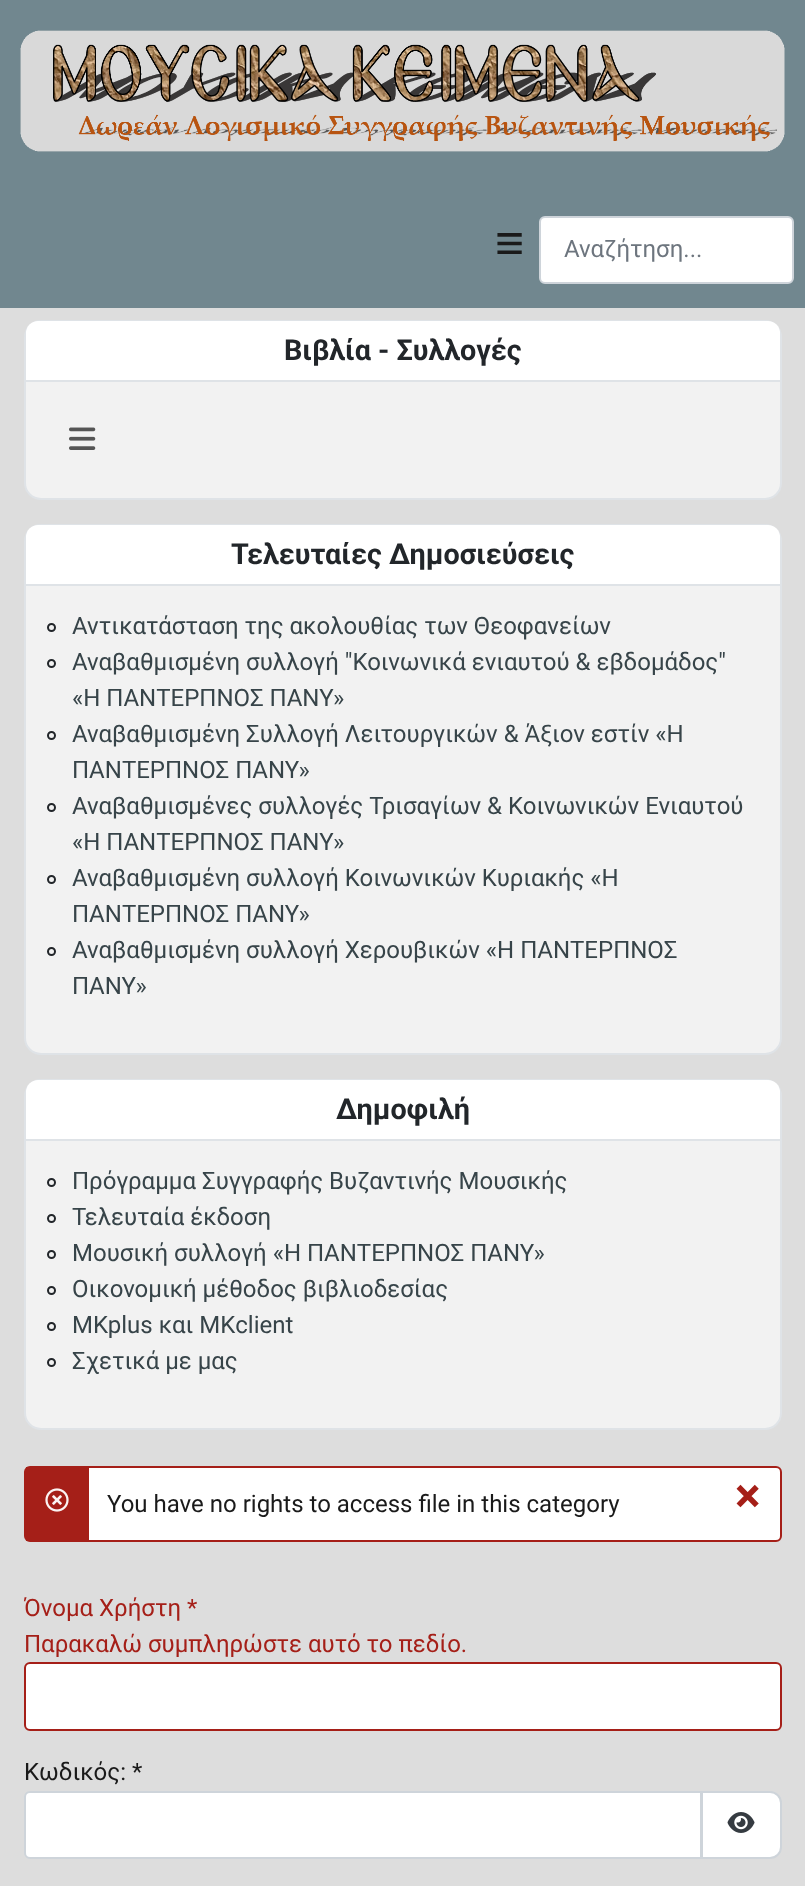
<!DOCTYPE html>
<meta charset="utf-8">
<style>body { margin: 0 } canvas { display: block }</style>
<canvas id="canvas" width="805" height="1886"></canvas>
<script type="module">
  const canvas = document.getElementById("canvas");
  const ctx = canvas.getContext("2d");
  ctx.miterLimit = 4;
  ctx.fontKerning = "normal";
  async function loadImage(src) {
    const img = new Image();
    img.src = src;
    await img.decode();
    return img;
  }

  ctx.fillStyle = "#dddddd";
  ctx.fillRect(0, 0, 805, 1886);
  ctx.fillStyle = "#71878f";
  ctx.fillRect(0, 0, 805, 308);
  ctx.drawImage(await loadImage("img1.png"), 20, 30, 765, 122);
  ctx.font = "50px Liberation Sans";
  ctx.fillStyle = "#1a1a1a";
  ctx.fillText("≡", 495, 260);
  ctx.fillStyle = "#ffffff";
  ctx.beginPath();
  ctx.roundRect(540, 217, 253, 66, 5);
  ctx.fill();
  ctx.strokeStyle = "#ced4da";
  ctx.lineWidth = 2;
  ctx.stroke();
  ctx.font = "24px Roboto";
  ctx.fillStyle = "#6d757e";
  ctx.fillText("Αναζήτηση...", 564, 257);
  ctx.fillStyle = "#f2f2f2";
  ctx.beginPath();
  ctx.roundRect(25, 321, 756, 178, 16);
  ctx.fill();
  ctx.strokeStyle = "#dfe3e7";
  ctx.stroke();
  ctx.fillStyle = "#ffffff";
  ctx.beginPath();
  ctx.roundRect(26, 321, 754, 60, [12, 12, 0, 0]);
  ctx.fill();
  ctx.fillStyle = "#dfe3e7";
  ctx.fillRect(26, 380, 754, 2);
  ctx.font = "bold 28.75px Roboto";
  ctx.fillStyle = "#22262a";
  ctx.fillText("Βιβλία - Συλλογές", 284, 360);
  ctx.drawImage(await loadImage("img2.png"), 69, 427, 27, 23);
  ctx.fillStyle = "#f2f2f2";
  ctx.beginPath();
  ctx.roundRect(25, 525, 756, 529, 16);
  ctx.fill();
  ctx.stroke();
  ctx.fillStyle = "#ffffff";
  ctx.beginPath();
  ctx.roundRect(26, 525, 754, 60, [12, 12, 0, 0]);
  ctx.fill();
  ctx.fillStyle = "#dfe3e7";
  ctx.fillRect(26, 584, 754, 2);
  ctx.fillStyle = "#22262a";
  ctx.fillText("Τελευταίες Δημοσιεύσεις", 231, 564);
  ctx.beginPath();
  ctx.arc(51.5, 627.5, 3.5, 0, Math.PI * 2);
  ctx.strokeStyle = "#22262a";
  ctx.stroke();
  ctx.font = "24px Roboto";
  ctx.fillStyle = "#374449";
  ctx.fillText("Αντικατάσταση της ακολουθίας των Θεοφανείων", 72, 634);
  ctx.beginPath();
  ctx.arc(51.5, 663.5, 3.5, 0, Math.PI * 2);
  ctx.stroke();
  ctx.fillText("Αναβαθμισμένη συλλογή \"Κοινωνικά ενιαυτού & εβδομάδος\"", 72, 670);
  ctx.fillText("«Η ΠΑΝΤΕΡΠΝΟΣ ΠΑΝΥ»", 72, 706);
  ctx.beginPath();
  ctx.arc(51.5, 735.5, 3.5, 0, Math.PI * 2);
  ctx.stroke();
  ctx.fillText("Αναβαθμισμένη Συλλογή Λειτουργικών & Άξιον εστίν «Η", 72, 742);
  ctx.fillText("ΠΑΝΤΕΡΠΝΟΣ ΠΑΝΥ»", 72, 778);
  ctx.beginPath();
  ctx.arc(51.5, 807.5, 3.5, 0, Math.PI * 2);
  ctx.stroke();
  ctx.fillText("Αναβαθμισμένες συλλογές Τρισαγίων & Κοινωνικών Ενιαυτού", 72, 814);
  ctx.fillText("«Η ΠΑΝΤΕΡΠΝΟΣ ΠΑΝΥ»", 72, 850);
  ctx.beginPath();
  ctx.arc(51.5, 879.5, 3.5, 0, Math.PI * 2);
  ctx.stroke();
  ctx.fillText("Αναβαθμισμένη συλλογή Κοινωνικών Κυριακής «Η", 72, 886);
  ctx.fillText("ΠΑΝΤΕΡΠΝΟΣ ΠΑΝΥ»", 72, 922);
  ctx.beginPath();
  ctx.arc(51.5, 951.5, 3.5, 0, Math.PI * 2);
  ctx.stroke();
  ctx.fillText("Αναβαθμισμένη συλλογή Χερουβικών «Η ΠΑΝΤΕΡΠΝΟΣ", 72, 958);
  ctx.fillText("ΠΑΝΥ»", 72, 994);
  ctx.fillStyle = "#f2f2f2";
  ctx.beginPath();
  ctx.roundRect(25, 1080, 756, 349, 16);
  ctx.fill();
  ctx.strokeStyle = "#dfe3e7";
  ctx.stroke();
  ctx.fillStyle = "#ffffff";
  ctx.beginPath();
  ctx.roundRect(26, 1080, 754, 60, [12, 12, 0, 0]);
  ctx.fill();
  ctx.fillStyle = "#dfe3e7";
  ctx.fillRect(26, 1139, 754, 2);
  ctx.font = "bold 28.75px Roboto";
  ctx.fillStyle = "#22262a";
  ctx.fillText("Δημοφιλή", 336, 1119);
  ctx.beginPath();
  ctx.arc(51.5, 1182.5, 3.5, 0, Math.PI * 2);
  ctx.strokeStyle = "#22262a";
  ctx.stroke();
  ctx.font = "24px Roboto";
  ctx.fillStyle = "#374449";
  ctx.fillText("Πρόγραμμα Συγγραφής Βυζαντινής Μουσικής", 72, 1189);
  ctx.beginPath();
  ctx.arc(51.5, 1218.5, 3.5, 0, Math.PI * 2);
  ctx.stroke();
  ctx.fillText("Τελευταία έκδοση", 72, 1225);
  ctx.beginPath();
  ctx.arc(51.5, 1254.5, 3.5, 0, Math.PI * 2);
  ctx.stroke();
  ctx.fillText("Μουσική συλλογή «Η ΠΑΝΤΕΡΠΝΟΣ ΠΑΝΥ»", 72, 1261);
  ctx.beginPath();
  ctx.arc(51.5, 1290.5, 3.5, 0, Math.PI * 2);
  ctx.stroke();
  ctx.fillText("Οικονομική μέθοδος βιβλιοδεσίας", 72, 1297);
  ctx.beginPath();
  ctx.arc(51.5, 1326.5, 3.5, 0, Math.PI * 2);
  ctx.stroke();
  ctx.fillText("MKplus και ΜΚclient", 72, 1333);
  ctx.beginPath();
  ctx.arc(51.5, 1362.5, 3.5, 0, Math.PI * 2);
  ctx.stroke();
  ctx.fillText("Σχετικά με μας", 72, 1369);
  ctx.fillStyle = "#ffffff";
  ctx.beginPath();
  ctx.roundRect(25, 1467, 756, 74, 5);
  ctx.fill();
  ctx.strokeStyle = "#a51f18";
  ctx.stroke();
  ctx.fillStyle = "#a51f18";
  ctx.fillRect(26, 1467, 63, 74);
  ctx.drawImage(await loadImage("img3.png"), 45, 1488, 24, 24);
  ctx.fillStyle = "#1a1a1a";
  ctx.fillText("You have no rights to access file in this category", 107, 1512);
  ctx.font = "bold 48px Roboto";
  ctx.fillStyle = "#a51f18";
  ctx.fillText("×", 735, 1512);
  ctx.font = "24px Roboto";
  ctx.fillText("Όνομα Χρήστη *", 24, 1616);
  ctx.fillText("Παρακαλώ συμπληρώστε αυτό το πεδίο.", 24, 1652);
  ctx.fillStyle = "#ffffff";
  ctx.beginPath();
  ctx.roundRect(25, 1663, 756, 67, 5);
  ctx.fill();
  ctx.stroke();
  ctx.fillStyle = "#1a1a1a";
  ctx.fillText("Κωδικός: *", 24, 1780);
  ctx.fillStyle = "#ffffff";
  ctx.beginPath();
  ctx.roundRect(25, 1792, 676, 66, [5, 0, 0, 5]);
  ctx.fill();
  ctx.strokeStyle = "#ced4da";
  ctx.stroke();
  ctx.beginPath();
  ctx.roundRect(702, 1792, 79, 66, [0, 11, 11, 0]);
  ctx.fill();
  ctx.stroke();
  ctx.drawImage(await loadImage("img4.png"), 727, 1812, 28, 21);
</script>
